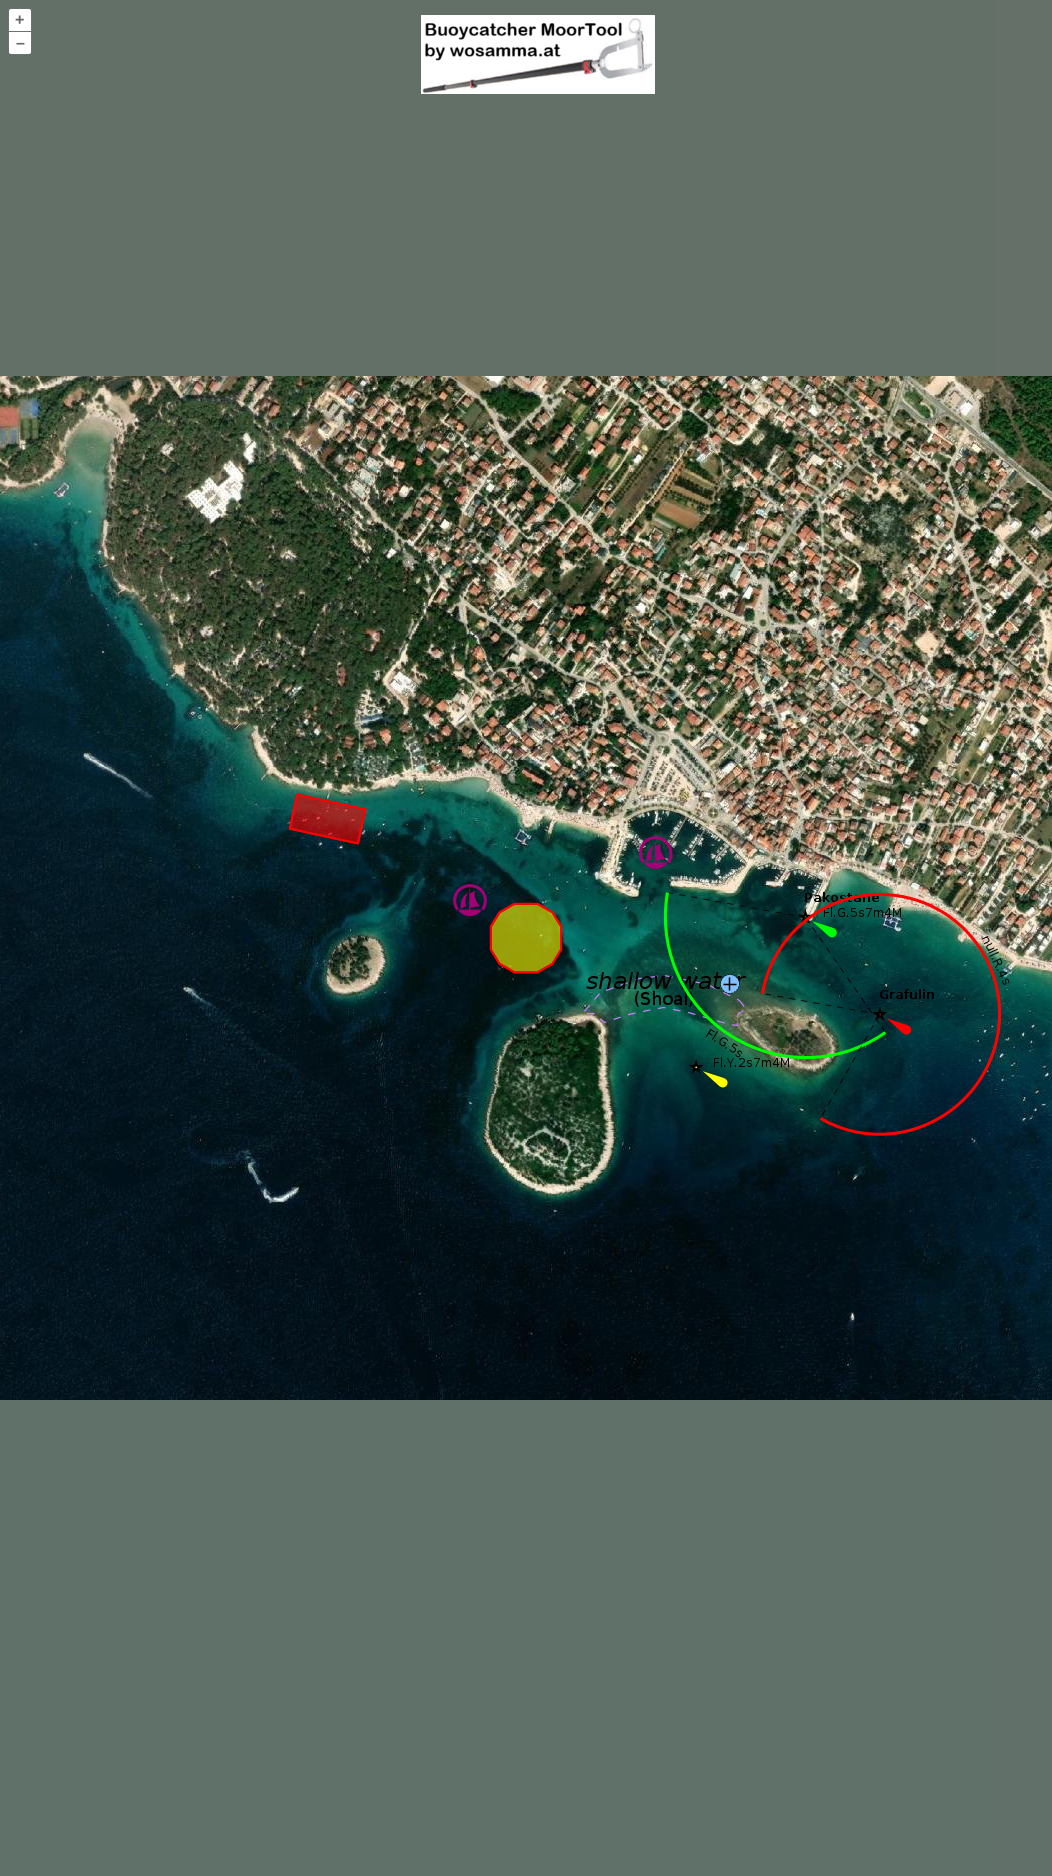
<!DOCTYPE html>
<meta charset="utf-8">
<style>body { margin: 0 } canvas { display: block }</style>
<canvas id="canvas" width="1052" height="1876"></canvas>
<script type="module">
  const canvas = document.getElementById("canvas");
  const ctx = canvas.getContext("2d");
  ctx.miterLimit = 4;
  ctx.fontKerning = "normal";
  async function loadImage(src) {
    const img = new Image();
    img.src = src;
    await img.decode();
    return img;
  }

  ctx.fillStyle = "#ffffff";
  ctx.fillRect(0, 0, 1052, 1876);
  ctx.drawImage(await loadImage("img1.png"), 0, 0, 1052, 1876);
  ctx.fillStyle = "#6a746e";
  ctx.beginPath();
  ctx.roundRect(8, 8, 24, 47, 4);
  ctx.fill();
  ctx.fillStyle = "#ffffff";
  ctx.beginPath();
  ctx.roundRect(9, 9, 22, 22, [2, 2, 0, 0]);
  ctx.fill();
  ctx.font = "bold 16px Liberation Sans";
  ctx.fillStyle = "#666666";
  ctx.fillText("+", 15, 25);
  ctx.fillStyle = "#ffffff";
  ctx.beginPath();
  ctx.roundRect(9, 32, 22, 22, [0, 0, 2, 2]);
  ctx.fill();
  ctx.fillStyle = "#666666";
  ctx.fillText("–", 16, 48);
  ctx.drawImage(await loadImage("img2.png"), 421, 15, 234, 79);
</script>
